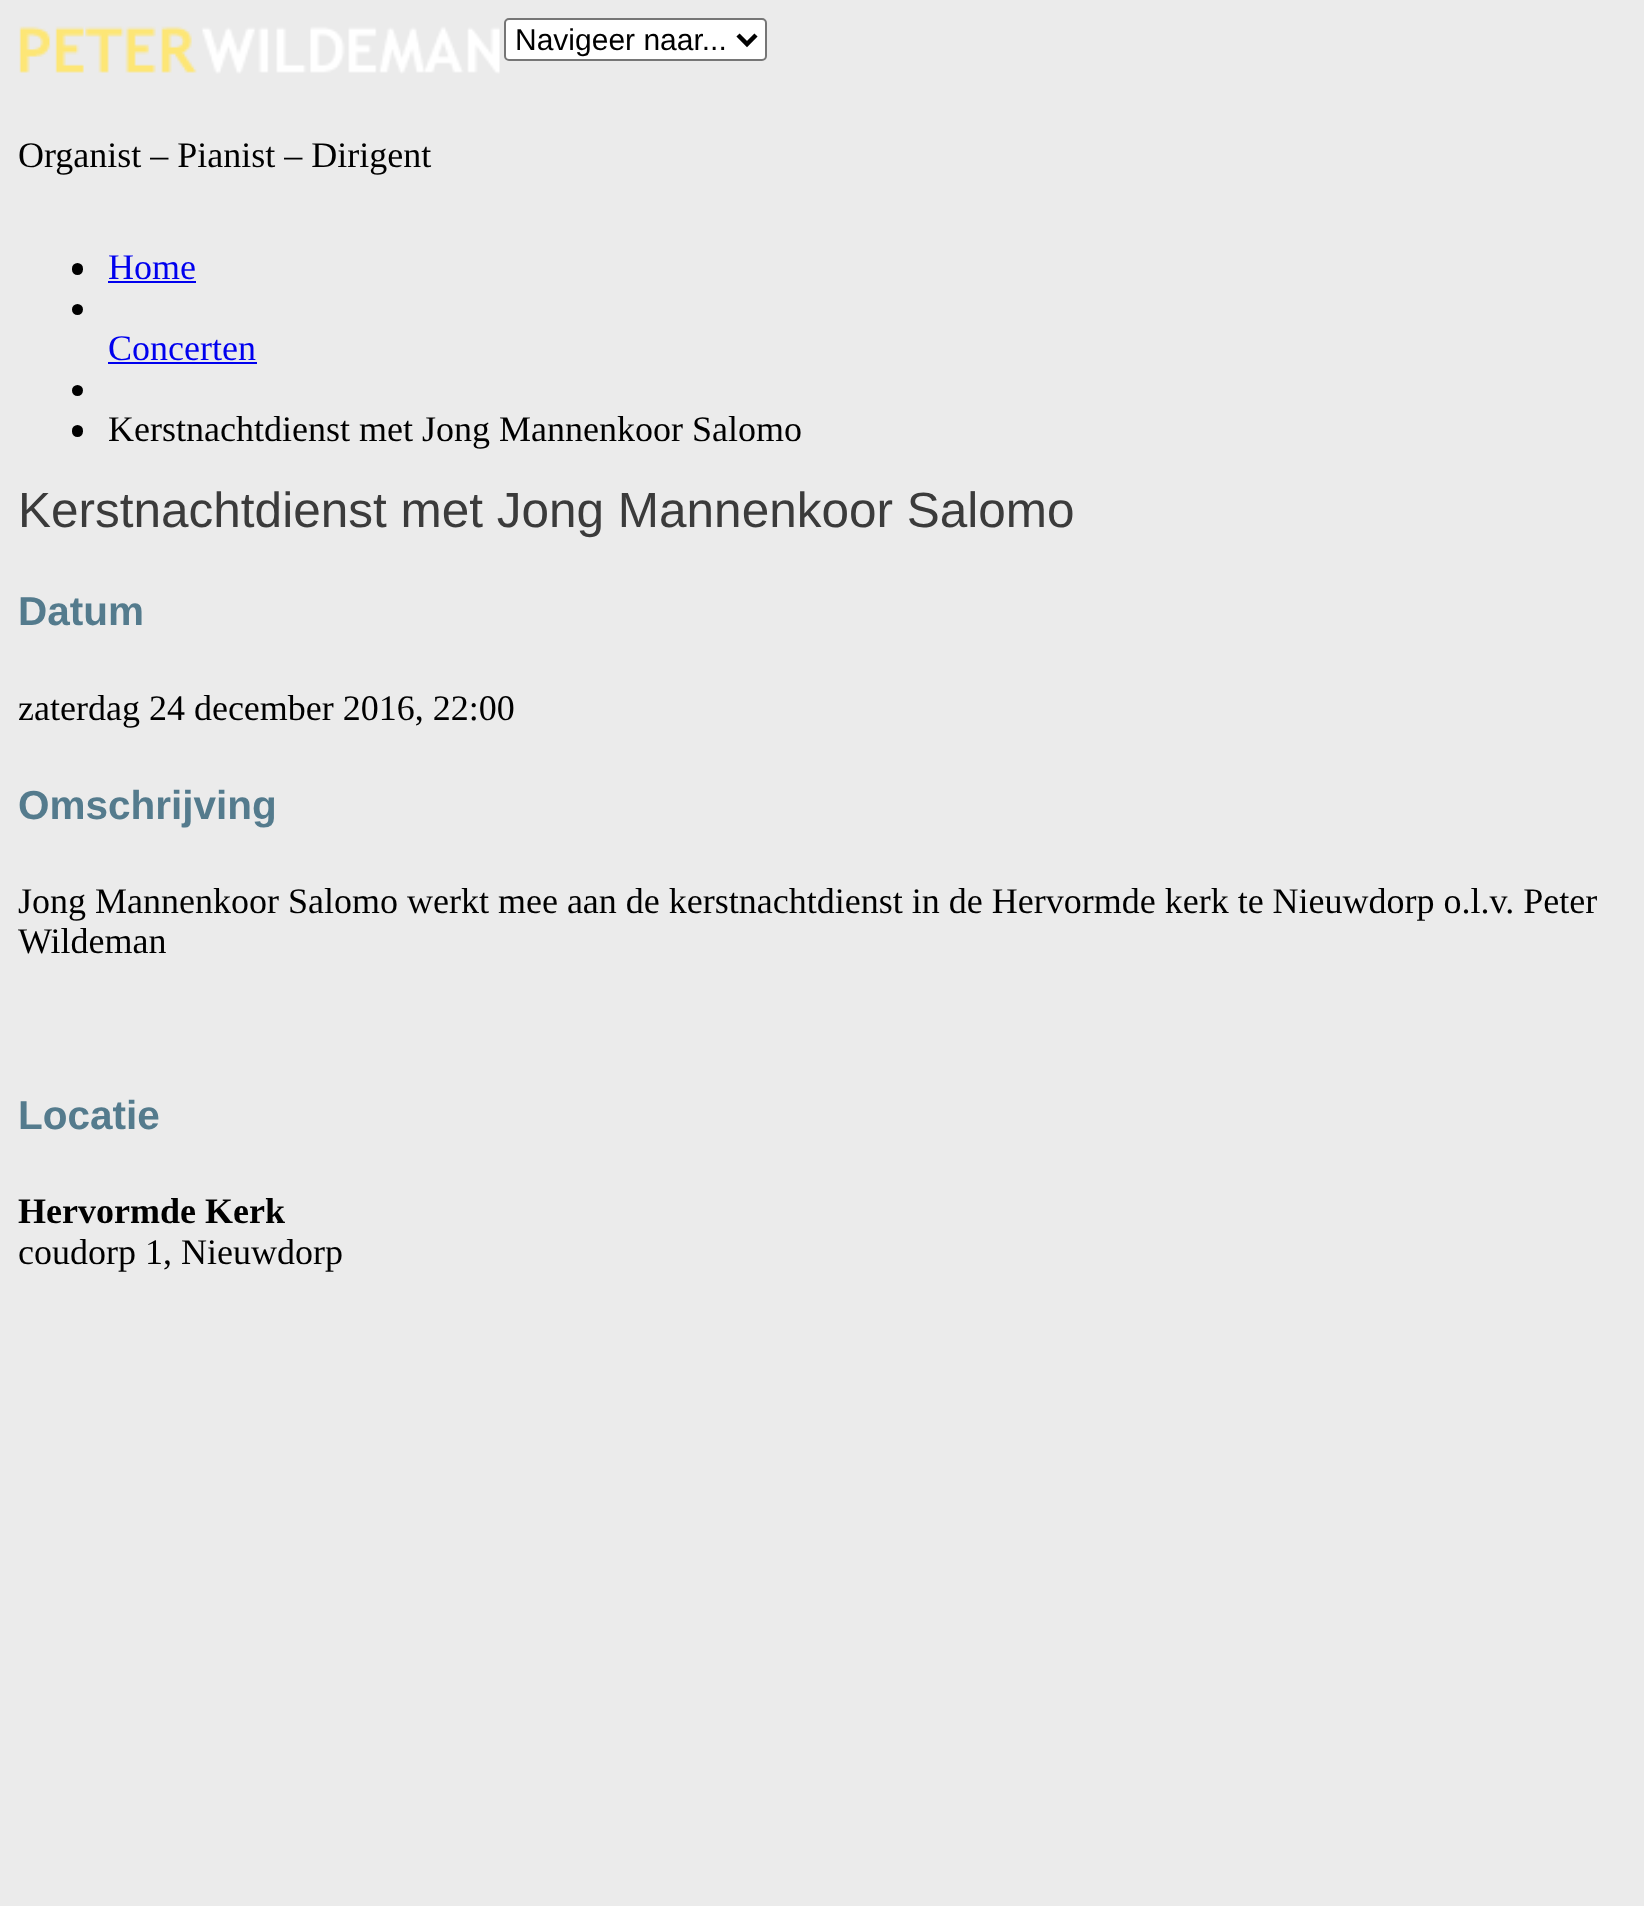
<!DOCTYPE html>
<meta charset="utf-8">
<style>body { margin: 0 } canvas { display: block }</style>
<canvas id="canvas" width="1644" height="1906"></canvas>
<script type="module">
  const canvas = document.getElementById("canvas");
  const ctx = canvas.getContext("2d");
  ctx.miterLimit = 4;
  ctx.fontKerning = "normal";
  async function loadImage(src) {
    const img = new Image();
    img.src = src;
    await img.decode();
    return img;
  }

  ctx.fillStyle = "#ebebeb";
  ctx.fillRect(0, 0, 1644, 1906);
  ctx.fillStyle = "#ffffff";
  ctx.beginPath();
  ctx.roundRect(505, 19, 261, 41, 4);
  ctx.fill();
  ctx.strokeStyle = "#767676";
  ctx.lineWidth = 2;
  ctx.stroke();
  ctx.beginPath();
  ctx.moveTo(738, 35);
  ctx.lineTo(747, 44);
  ctx.lineTo(756, 35);
  ctx.strokeStyle = "#000000";
  ctx.lineWidth = 4.5;
  ctx.stroke();
  ctx.font = "30px Liberation Sans";
  ctx.fillStyle = "#000000";
  ctx.fillText("Navigeer naar...", 515, 50);
  ctx.drawImage(await loadImage("img1.png"), 19, 26, 481, 48);
  ctx.font = "36px Liberation Serif";
  ctx.fillText("Organist – Pianist – Dirigent", 18, 167);
  ctx.beginPath();
  ctx.roundRect(72, 263, 11, 12, 5.5);
  ctx.fill();
  ctx.fillStyle = "#0000ee";
  ctx.fillText("Home", 108, 279);
  ctx.fillRect(108, 281, 88, 2);
  ctx.fillStyle = "#000000";
  ctx.beginPath();
  ctx.arc(77.5, 309.5, 5.5, 0, Math.PI * 2);
  ctx.fill();
  ctx.fillStyle = "#0000ee";
  ctx.fillText("Concerten", 108, 360);
  ctx.fillRect(108, 362, 149, 2);
  ctx.fillStyle = "#000000";
  ctx.beginPath();
  ctx.arc(77.5, 390.5, 5.5, 0, Math.PI * 2);
  ctx.fill();
  ctx.beginPath();
  ctx.roundRect(72, 425, 11, 12, 5.5);
  ctx.fill();
  ctx.fillText("Kerstnachtdienst met Jong Mannenkoor Salomo", 108, 441);
  ctx.font = "49.5px Liberation Sans";
  ctx.fillStyle = "#3b3b3b";
  ctx.fillText("Kerstnachtdienst met Jong Mannenkoor Salomo", 18, 527);
  ctx.font = "bold 40.5px Liberation Sans";
  ctx.fillStyle = "#547b8d";
  ctx.fillText("Datum", 18, 625);
  ctx.font = "36px Liberation Serif";
  ctx.fillStyle = "#000000";
  ctx.fillText("zaterdag 24 december 2016, 22:00", 18, 720);
  ctx.font = "bold 40.5px Liberation Sans";
  ctx.fillStyle = "#547b8d";
  ctx.fillText("Omschrijving", 18, 819);
  ctx.font = "36px Liberation Serif";
  ctx.fillStyle = "#000000";
  ctx.fillText("Jong Mannenkoor Salomo werkt mee aan de kerstnachtdienst in de Hervormde kerk te Nieuwdorp o.l.v. Peter", 18, 913);
  ctx.fillText("Wildeman", 18, 953);
  ctx.font = "bold 40.5px Liberation Sans";
  ctx.fillStyle = "#547b8d";
  ctx.fillText("Locatie", 18, 1129);
  ctx.font = "bold 36px Liberation Serif";
  ctx.fillStyle = "#000000";
  ctx.fillText("Hervormde Kerk", 18, 1223);
  ctx.font = "36px Liberation Serif";
  ctx.fillText("coudorp 1, Nieuwdorp", 18, 1264);
</script>
